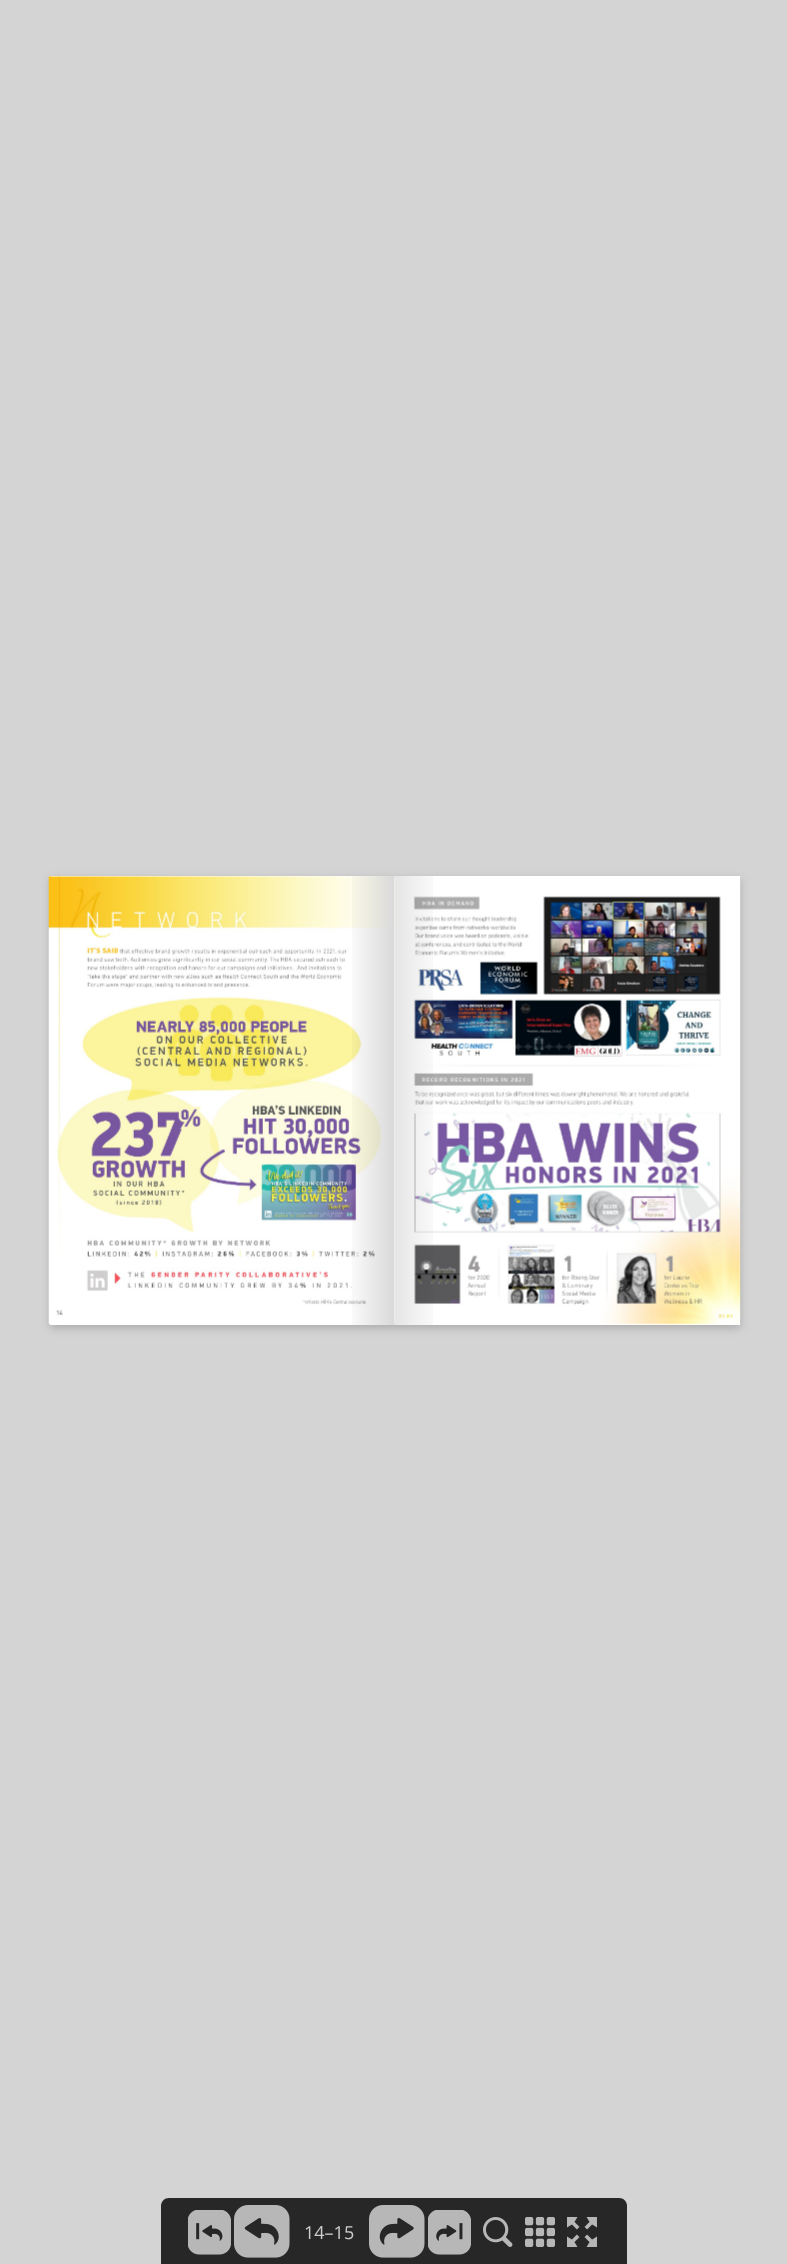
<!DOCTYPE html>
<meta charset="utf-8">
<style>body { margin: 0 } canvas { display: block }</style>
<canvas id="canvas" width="787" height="2264"></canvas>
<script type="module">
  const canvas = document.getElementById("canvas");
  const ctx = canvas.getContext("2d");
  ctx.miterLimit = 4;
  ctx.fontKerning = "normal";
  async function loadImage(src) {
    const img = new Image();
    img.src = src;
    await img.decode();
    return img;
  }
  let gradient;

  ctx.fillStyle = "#d4d4d4";
  ctx.fillRect(0, 0, 787, 2264);
  ctx.fillStyle = "#aaaaaa";
  ctx.filter = "blur(4.5px)";
  ctx.beginPath();
  ctx.rect(50, 879, 690, 449);
  ctx.fill();
  ctx.filter = "none";
  ctx.fillStyle = "#ffffff";
  ctx.fillRect(50, 876, 690, 449);
  ctx.drawImage(await loadImage("img1.png"), 48, 876, 340, 449);
  gradient = ctx.createLinearGradient(345, 1100, 394, 1100);
  gradient.addColorStop(0, "rgba(0, 0, 0, 0)");
  gradient.addColorStop(1, "rgba(0, 0, 0, 0.15)");
  ctx.fillStyle = gradient;
  ctx.fillRect(352, 876, 43, 449);
  ctx.drawImage(await loadImage("img2.png"), 394, 876, 347, 449);
  gradient = ctx.createLinearGradient(394, 1100, 444, 1100);
  gradient.addColorStop(0, "rgba(0, 0, 0, 0.1)");
  gradient.addColorStop(1, "rgba(0, 0, 0, 0)");
  ctx.fillStyle = gradient;
  ctx.fillRect(395, 876, 38, 449);
  ctx.fillStyle = "#272727";
  ctx.beginPath();
  ctx.moveTo(169, 2198);
  ctx.lineTo(619, 2198);
  ctx.bezierCurveTo(623.5, 2198, 627, 2201.5, 627, 2206);
  ctx.lineTo(627, 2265);
  ctx.lineTo(161, 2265);
  ctx.lineTo(161, 2206);
  ctx.bezierCurveTo(161, 2201.5, 164.5, 2198, 169, 2198);
  ctx.closePath();
  ctx.fill();
  ctx.drawImage(await loadImage("img3.png"), 188, 2210, 43, 45);
  ctx.drawImage(await loadImage("img4.png"), 234, 2205, 56, 53);
  ctx.font = "18px Open Sans";
  ctx.fillStyle = "#cccccc";
  ctx.fillText("14–15", 304, 2239);
  ctx.drawImage(await loadImage("img5.png"), 369, 2205, 56, 53);
  ctx.drawImage(await loadImage("img6.png"), 428, 2210, 43, 45);
  ctx.drawImage(await loadImage("img7.png"), 483, 2217, 30, 30);
  ctx.drawImage(await loadImage("img8.png"), 525, 2217, 30, 30);
  ctx.drawImage(await loadImage("img9.png"), 567, 2217, 30, 30);
</script>
